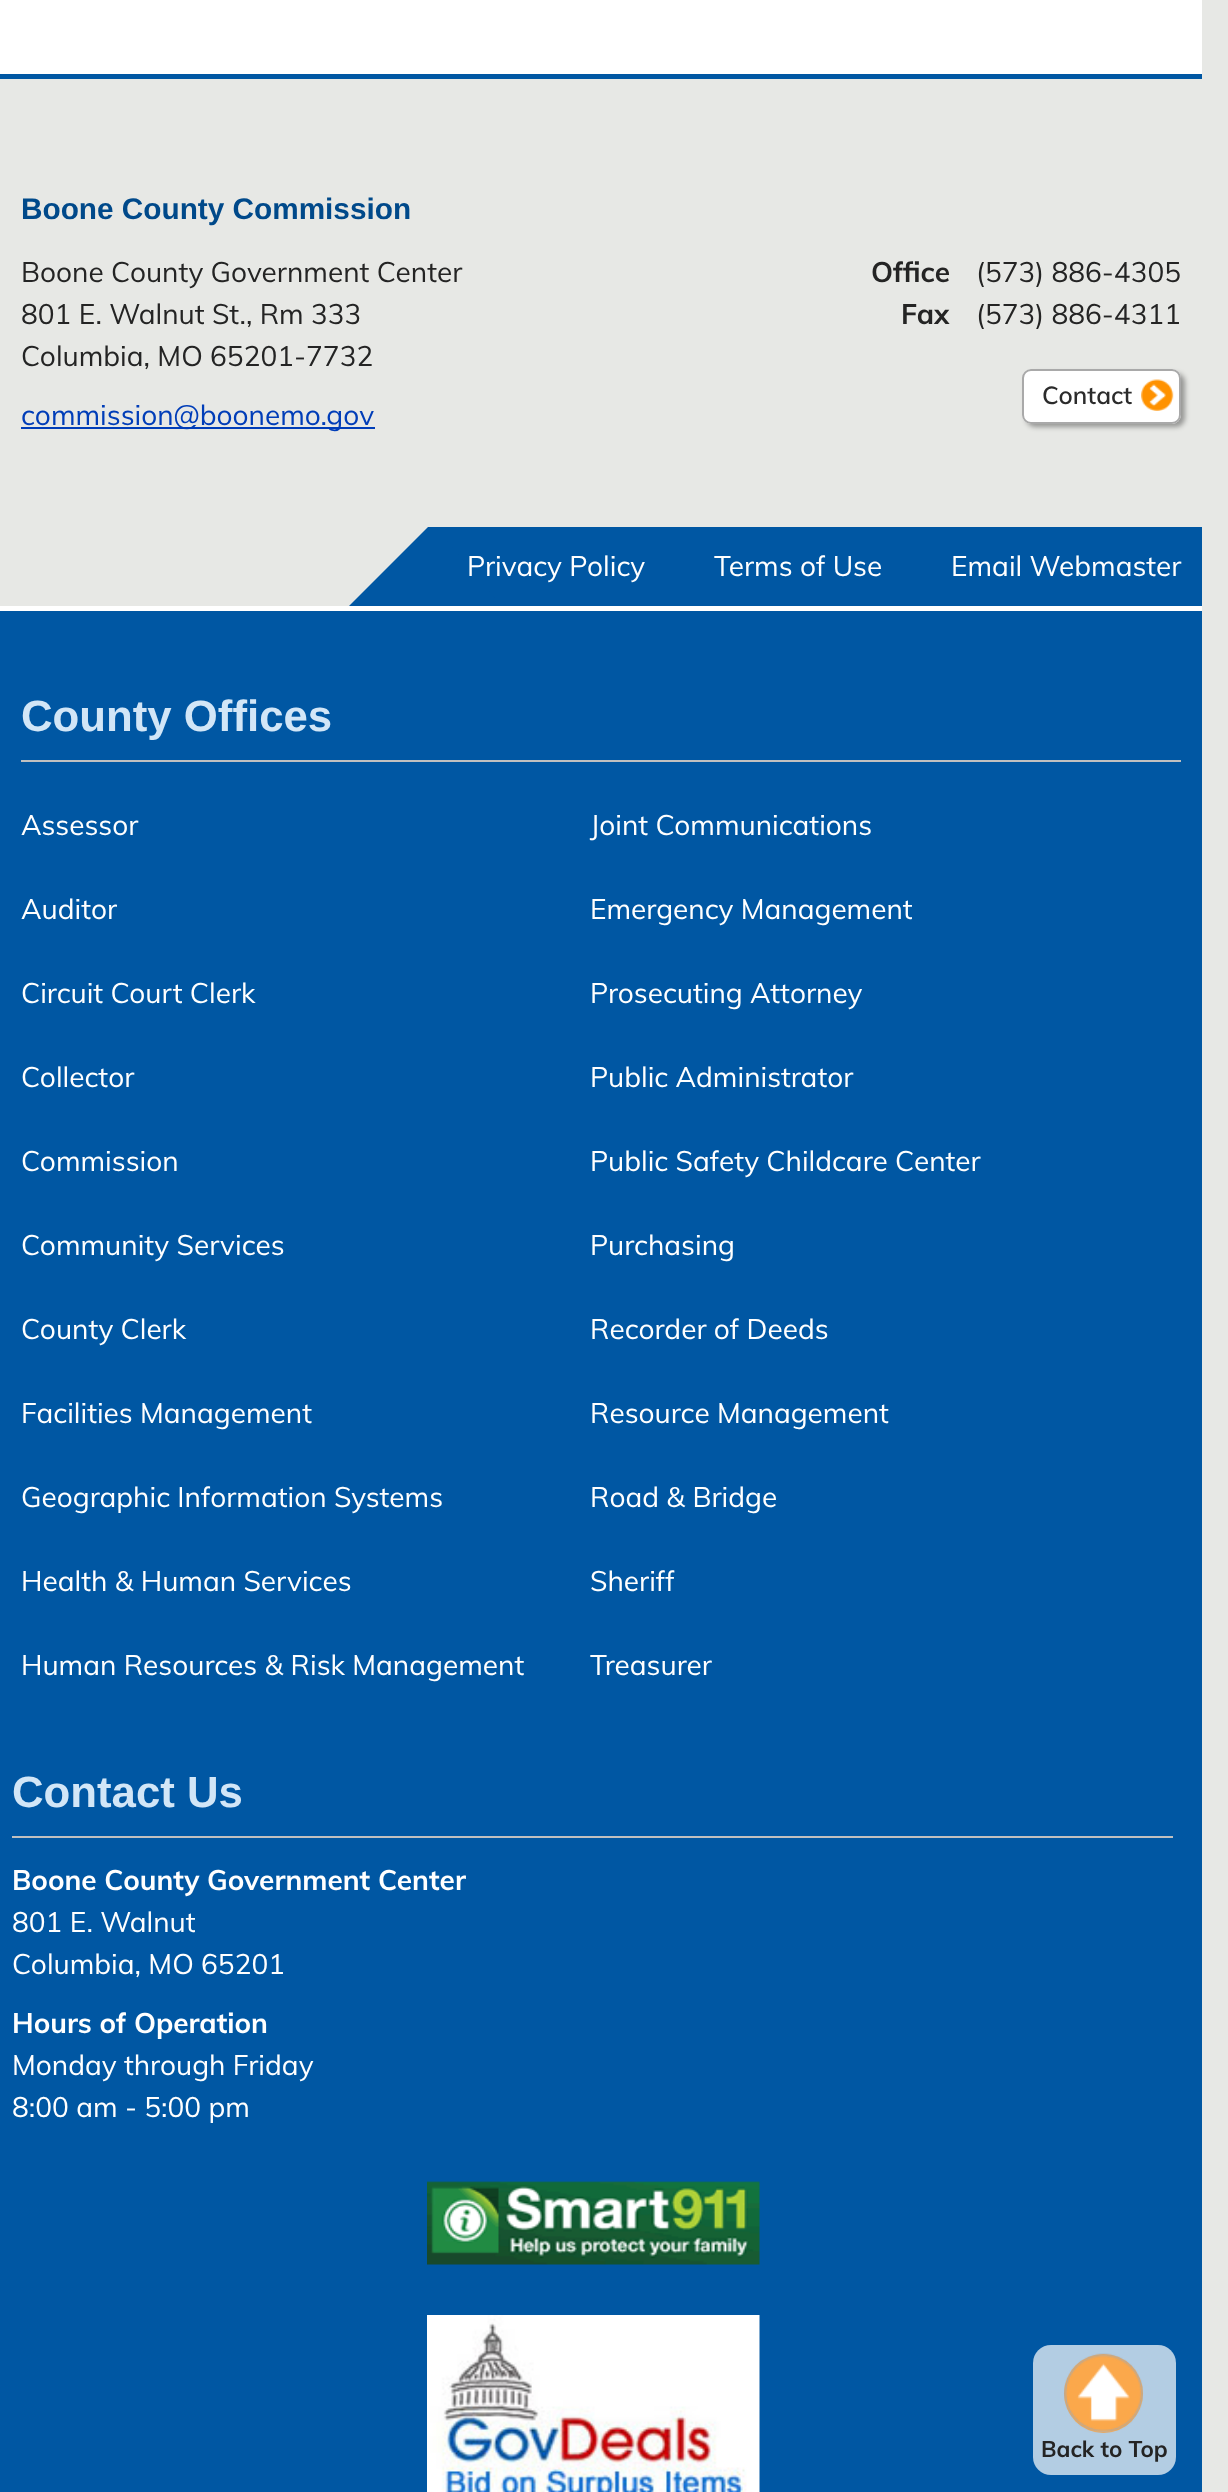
<!DOCTYPE html>
<meta charset="utf-8">
<style>body { margin: 0 } canvas { display: block }</style>
<canvas id="canvas" width="1228" height="2492"></canvas>
<script type="module">
  const canvas = document.getElementById("canvas");
  const ctx = canvas.getContext("2d");
  ctx.miterLimit = 4;
  ctx.fontKerning = "normal";
  async function loadImage(src) {
    const img = new Image();
    img.src = src;
    await img.decode();
    return img;
  }

  ctx.fillStyle = "#e7e8e5";
  ctx.fillRect(0, 0, 1228, 2492);
  ctx.fillStyle = "#ffffff";
  ctx.fillRect(0, 0, 1202, 74);
  ctx.fillStyle = "#0057a3";
  ctx.fillRect(0, 74, 1202, 5);
  ctx.font = "bold 29.75px Liberation Sans";
  ctx.fillStyle = "#00498a";
  ctx.fillText("Boone County Commission", 21, 219);
  ctx.font = "28px Muli";
  ctx.fillStyle = "#242424";
  ctx.fillText("Boone County Government Center", 21, 282);
  ctx.fillText("801 E. Walnut St., Rm 333", 21, 324);
  ctx.fillText("Columbia, MO 65201-7732", 21, 366);
  ctx.fillStyle = "#003db8";
  ctx.fillRect(21, 427, 354, 2);
  ctx.fillText("commission@boonemo.gov", 21, 425);
  ctx.font = "bold 28px Muli";
  ctx.fillStyle = "#242424";
  ctx.fillText("Office", 871, 282);
  ctx.font = "28px Muli";
  ctx.fillText("(573) 886-4305", 976, 282);
  ctx.font = "bold 28px Muli";
  ctx.fillText("Fax", 901, 324);
  ctx.font = "28px Muli";
  ctx.fillText("(573) 886-4311", 976, 324);
  ctx.fillStyle = "rgba(0, 0, 0, 0.35)";
  ctx.filter = "blur(2.5px)";
  ctx.beginPath();
  ctx.roundRect(1026, 373, 159, 54, 9);
  ctx.fill();
  ctx.filter = "none";
  ctx.fillStyle = "#ffffff";
  ctx.beginPath();
  ctx.roundRect(1022, 369, 159, 55, 9);
  ctx.fill();
  ctx.drawImage(await loadImage("img1.png"), 1141, 379, 33, 32);
  ctx.beginPath();
  ctx.roundRect(1023, 370, 157, 53, 8);
  ctx.strokeStyle = "#a9a9a9";
  ctx.lineWidth = 2;
  ctx.stroke();
  ctx.font = "600 24.5px Muli";
  ctx.fillStyle = "#2b2b2b";
  ctx.fillText("Contact", 1042, 404);
  ctx.fillStyle = "#0057a3";
  ctx.fillRect(435, 527, 767, 79);
  ctx.save();
  ctx.beginPath();
  ctx.rect(0, 527, 1202, 79);
  ctx.clip();
  ctx.beginPath();
  ctx.moveTo(520, 628);
  ctx.lineTo(327, 628);
  ctx.lineTo(432, 523);
  ctx.closePath();
  ctx.fill();
  ctx.restore();
  ctx.font = "28px Muli";
  ctx.fillStyle = "#ffffff";
  ctx.fillText("Privacy Policy", 467, 576);
  ctx.fillText("Terms of Use", 714, 576);
  ctx.fillText("Email Webmaster", 951, 576);
  ctx.fillStyle = "#0057a3";
  ctx.fillRect(0, 611, 1202, 1881);
  ctx.fillStyle = "#ffffff";
  ctx.fillRect(0, 606, 1202, 5);
  ctx.fillStyle = "#c0c0c0";
  ctx.fillRect(21, 760, 1160, 2);
  ctx.font = "bold 43.75px Liberation Sans";
  ctx.fillStyle = "#d2e6f7";
  ctx.fillText("County Offices", 21, 731);
  ctx.font = "28px Muli";
  ctx.fillStyle = "#ffffff";
  ctx.fillText("Assessor", 21, 835);
  ctx.fillText("Auditor", 21, 919);
  ctx.fillText("Circuit Court Clerk", 21, 1003);
  ctx.fillText("Collector", 21, 1087);
  ctx.fillText("Commission", 21, 1171);
  ctx.fillText("Community Services", 21, 1255);
  ctx.fillText("County Clerk", 21, 1339);
  ctx.fillText("Facilities Management", 21, 1423);
  ctx.fillText("Geographic Information Systems", 21, 1507);
  ctx.fillText("Health & Human Services", 21, 1591);
  ctx.fillText("Human Resources & Risk Management", 21, 1675);
  ctx.fillText("Joint Communications", 590, 835);
  ctx.fillText("Emergency Management", 590, 919);
  ctx.fillText("Prosecuting Attorney", 590, 1003);
  ctx.fillText("Public Administrator", 590, 1087);
  ctx.fillText("Public Safety Childcare Center", 590, 1171);
  ctx.fillText("Purchasing", 590, 1255);
  ctx.fillText("Recorder of Deeds", 590, 1339);
  ctx.fillText("Resource Management", 590, 1423);
  ctx.fillText("Road & Bridge", 590, 1507);
  ctx.fillText("Sheriff", 590, 1591);
  ctx.fillText("Treasurer", 590, 1675);
  ctx.fillStyle = "#c0c0c0";
  ctx.fillRect(12, 1836, 1161, 2);
  ctx.font = "bold 43.75px Liberation Sans";
  ctx.fillStyle = "#d2e6f7";
  ctx.fillText("Contact Us", 12, 1807);
  ctx.font = "bold 28px Muli";
  ctx.fillStyle = "#ffffff";
  ctx.fillText("Boone County Government Center", 12, 1890);
  ctx.font = "28px Muli";
  ctx.fillText("801 E. Walnut", 12, 1932);
  ctx.fillText("Columbia, MO 65201", 12, 1974);
  ctx.font = "bold 28px Muli";
  ctx.fillText("Hours of Operation", 12, 2033);
  ctx.font = "28px Muli";
  ctx.fillText("Monday through Friday", 12, 2075);
  ctx.fillText("8:00 am - 5:00 pm", 12, 2117);
  ctx.drawImage(await loadImage("img2.png"), 427, 2181, 333, 84);
  ctx.drawImage(await loadImage("img3.png"), 427, 2315, 333, 177);
  ctx.fillStyle = "#b3cde3";
  ctx.beginPath();
  ctx.roundRect(1033, 2345, 143, 130, 18);
  ctx.fill();
  ctx.fillStyle = "#fba84b";
  ctx.beginPath();
  ctx.arc(1103.5, 2393.5, 39.5, 0, Math.PI * 2);
  ctx.fill();
  ctx.drawImage(await loadImage("img4.png"), 1064, 2353, 79, 80);
  ctx.font = "bold 22.5px Muli";
  ctx.fillStyle = "#242424";
  ctx.fillText("Back to Top", 1041, 2457);
</script>
